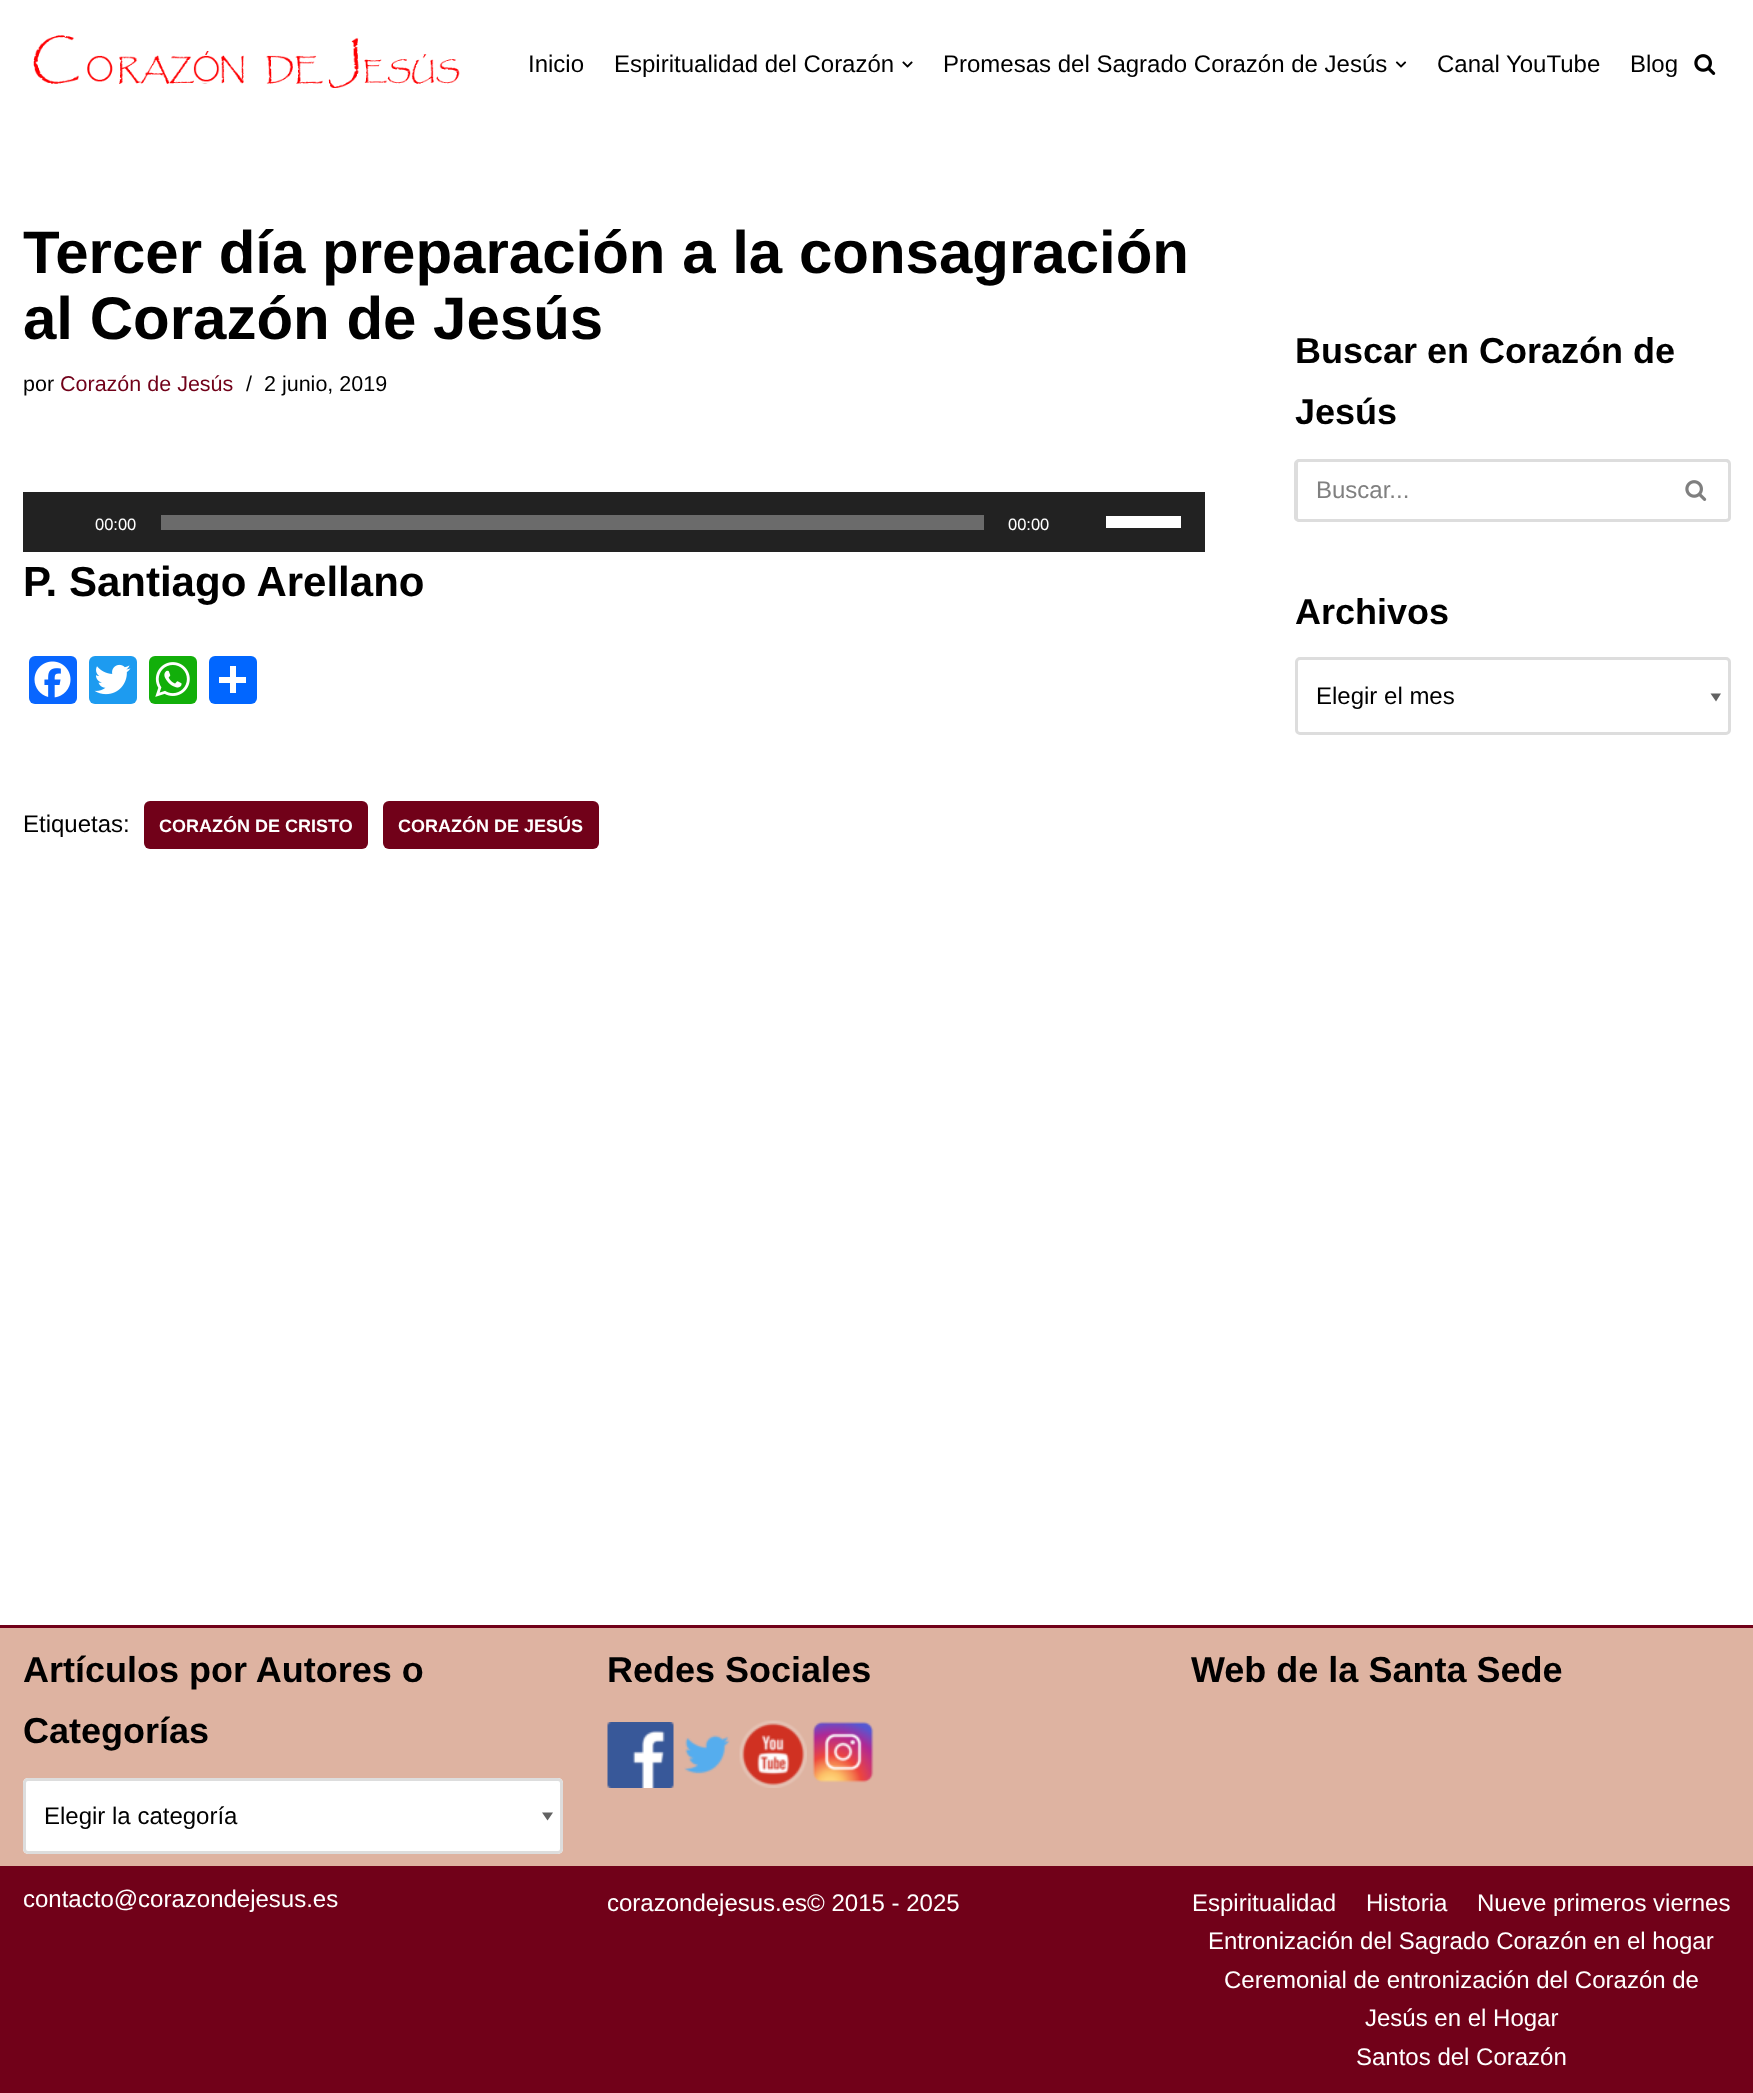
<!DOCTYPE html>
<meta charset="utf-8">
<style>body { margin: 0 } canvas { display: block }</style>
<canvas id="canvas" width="1753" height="2093"></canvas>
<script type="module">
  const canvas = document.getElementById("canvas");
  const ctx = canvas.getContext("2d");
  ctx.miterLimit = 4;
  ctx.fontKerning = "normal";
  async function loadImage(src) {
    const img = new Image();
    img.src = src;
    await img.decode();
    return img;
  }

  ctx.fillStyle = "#ffffff";
  ctx.fillRect(0, 0, 1753, 2093);
  ctx.drawImage(await loadImage("img1.png"), 33, 35, 427, 53);
  ctx.font = "24px Liberation Sans";
  ctx.fillStyle = "#000000";
  ctx.fillText("Inicio", 528, 72);
  ctx.fillText("Espiritualidad del Corazón", 614, 72);
  ctx.drawImage(await loadImage("img2.png"), 902, 61, 11, 7);
  ctx.fillText("Promesas del Sagrado Corazón de Jesús", 943, 72);
  ctx.drawImage(await loadImage("img3.png"), 1395, 61, 12, 7);
  ctx.fillText("Canal YouTube", 1437, 72);
  ctx.fillText("Blog", 1630, 72);
  ctx.drawImage(await loadImage("img4.png"), 1694, 54, 22, 21);
  ctx.font = "bold 60px Liberation Sans";
  ctx.fillText("Tercer día preparación a la consagración", 23, 273);
  ctx.fillText("al Corazón de Jesús", 23, 339);
  ctx.font = "21.5px Liberation Sans";
  ctx.fillText("por", 23, 391);
  ctx.fillStyle = "#710119";
  ctx.fillText("Corazón de Jesús", 60, 391);
  ctx.fillStyle = "#000000";
  ctx.fillText("/", 246, 391);
  ctx.fillText("2 junio, 2019", 264, 391);
  ctx.fillStyle = "#222222";
  ctx.fillRect(23, 492, 1182, 60);
  ctx.font = "16.5px Liberation Sans";
  ctx.fillStyle = "#ffffff";
  ctx.fillText("00:00", 95, 530);
  ctx.fillStyle = "#6b6b6b";
  ctx.fillRect(161, 515, 823, 15);
  ctx.fillStyle = "#ffffff";
  ctx.fillText("00:00", 1008, 530);
  ctx.fillRect(1106, 516, 75, 12);
  ctx.font = "bold 42px Liberation Sans";
  ctx.fillStyle = "#000000";
  ctx.fillText("P. Santiago Arellano", 23, 596);
  ctx.fillStyle = "#0866ff";
  ctx.beginPath();
  ctx.roundRect(29, 656, 48, 48, 6);
  ctx.fill();
  ctx.drawImage(await loadImage("img5.png"), 34, 661, 37, 37);
  ctx.fillStyle = "#1d9bf0";
  ctx.beginPath();
  ctx.roundRect(89, 656, 48, 48, 6);
  ctx.fill();
  ctx.drawImage(await loadImage("img6.png"), 94, 664, 37, 31);
  ctx.fillStyle = "#12af0a";
  ctx.beginPath();
  ctx.roundRect(149, 656, 48, 48, 6);
  ctx.fill();
  ctx.drawImage(await loadImage("img7.png"), 155, 662, 35, 35);
  ctx.fillStyle = "#0166ff";
  ctx.beginPath();
  ctx.roundRect(209, 656, 48, 48, 6);
  ctx.fill();
  ctx.fillStyle = "#ffffff";
  ctx.fillRect(230, 666, 6, 27);
  ctx.fillRect(219, 677, 27, 6);
  ctx.font = "24px Liberation Sans";
  ctx.fillStyle = "#000000";
  ctx.fillText("Etiquetas:", 23, 832);
  ctx.fillStyle = "#710119";
  ctx.beginPath();
  ctx.roundRect(144, 801, 224, 48, 6);
  ctx.fill();
  ctx.font = "bold 18px Liberation Sans";
  ctx.fillStyle = "#ffffff";
  ctx.fillText("CORAZÓN DE CRISTO", 159, 832);
  ctx.fillStyle = "#710119";
  ctx.beginPath();
  ctx.roundRect(383, 801, 216, 48, 6);
  ctx.fill();
  ctx.fillStyle = "#ffffff";
  ctx.fillText("CORAZÓN DE JESÚS", 398, 832);
  ctx.font = "bold 36px Liberation Sans";
  ctx.fillStyle = "#000000";
  ctx.fillText("Buscar en Corazón de", 1295, 363);
  ctx.fillText("Jesús", 1295, 424);
  ctx.fillStyle = "#dddddd";
  ctx.beginPath();
  ctx.moveTo(1299, 459);
  ctx.lineTo(1664, 459);
  ctx.lineTo(1664, 522);
  ctx.lineTo(1299, 522);
  ctx.bezierCurveTo(1297, 522, 1294, 520, 1294, 518);
  ctx.lineTo(1294, 464);
  ctx.bezierCurveTo(1294, 461, 1297, 459, 1299, 459);
  ctx.closePath();
  ctx.moveTo(1299, 462);
  ctx.lineTo(1664, 462);
  ctx.lineTo(1664, 519);
  ctx.lineTo(1299, 519);
  ctx.bezierCurveTo(1298, 519, 1298, 518, 1298, 518);
  ctx.lineTo(1298, 464);
  ctx.bezierCurveTo(1298, 463, 1298, 462, 1299, 462);
  ctx.closePath();
  ctx.fill("evenodd");
  ctx.font = "24px Liberation Sans";
  ctx.fillStyle = "#808080";
  ctx.fillText("Buscar...", 1316, 498);
  ctx.fillStyle = "#dddddd";
  ctx.beginPath();
  ctx.moveTo(1664, 459);
  ctx.lineTo(1726, 459);
  ctx.bezierCurveTo(1729, 459, 1731, 461, 1731, 464);
  ctx.lineTo(1731, 518);
  ctx.bezierCurveTo(1731, 520, 1729, 522, 1726, 522);
  ctx.lineTo(1664, 522);
  ctx.closePath();
  ctx.moveTo(1664, 462);
  ctx.lineTo(1726, 462);
  ctx.bezierCurveTo(1727, 462, 1728, 463, 1728, 464);
  ctx.lineTo(1728, 518);
  ctx.bezierCurveTo(1728, 518, 1727, 519, 1726, 519);
  ctx.lineTo(1664, 519);
  ctx.closePath();
  ctx.fill("evenodd");
  ctx.drawImage(await loadImage("img8.png"), 1685, 480, 22, 21);
  ctx.font = "bold 36px Liberation Sans";
  ctx.fillStyle = "#000000";
  ctx.fillText("Archivos", 1295, 624);
  ctx.fillStyle = "#626262";
  ctx.beginPath();
  ctx.moveTo(1721, 693.5);
  ctx.lineTo(1716, 701.5);
  ctx.lineTo(1710.5, 693.5);
  ctx.closePath();
  ctx.fill();
  ctx.beginPath();
  ctx.roundRect(1296.5, 658.5, 433, 75, 3.5);
  ctx.strokeStyle = "#dddddd";
  ctx.lineWidth = 3;
  ctx.stroke();
  ctx.font = "24px Liberation Sans";
  ctx.fillStyle = "#000000";
  ctx.fillText("Elegir el mes", 1316, 704);
  ctx.fillStyle = "#deb3a1";
  ctx.fillRect(0, 1628, 1753, 238);
  ctx.fillStyle = "#710119";
  ctx.fillRect(0, 1625, 1753, 3);
  ctx.font = "bold 36px Liberation Sans";
  ctx.fillStyle = "#000000";
  ctx.fillText("Artículos por Autores o", 23, 1682);
  ctx.fillText("Categorías", 23, 1743);
  ctx.fillStyle = "#ffffff";
  ctx.beginPath();
  ctx.roundRect(23, 1778, 540, 76, 5);
  ctx.fill();
  ctx.fillStyle = "#626262";
  ctx.beginPath();
  ctx.moveTo(553, 1812.5);
  ctx.lineTo(547.5, 1820.5);
  ctx.lineTo(542, 1812.5);
  ctx.closePath();
  ctx.fill();
  ctx.beginPath();
  ctx.roundRect(24.5, 1779.5, 537, 73, 3.5);
  ctx.stroke();
  ctx.font = "24px Liberation Sans";
  ctx.fillStyle = "#000000";
  ctx.fillText("Elegir la categoría", 44, 1824);
  ctx.font = "bold 36px Liberation Sans";
  ctx.fillText("Redes Sociales", 607, 1682);
  ctx.drawImage(await loadImage("img9.png"), 607, 1722, 67, 66);
  ctx.drawImage(await loadImage("img10.png"), 684, 1735, 46, 39);
  ctx.drawImage(await loadImage("img11.png"), 739, 1720, 68, 68);
  ctx.drawImage(await loadImage("img12.png"), 812, 1721, 62, 62);
  ctx.fillText("Web de la Santa Sede", 1191, 1682);
  ctx.fillStyle = "#710119";
  ctx.fillRect(0, 1866, 1753, 227);
  ctx.font = "24px Liberation Sans";
  ctx.fillStyle = "#ffffff";
  ctx.fillText("contacto@corazondejesus.es", 23, 1907);
  ctx.fillText("corazondejesus.es© 2015 - 2025", 607, 1911);
  ctx.fillText("Espiritualidad", 1192, 1911);
  ctx.fillText("Historia", 1366, 1911);
  ctx.fillText("Nueve primeros viernes", 1477, 1911);
  ctx.fillText("Entronización del Sagrado Corazón en el hogar", 1208, 1949);
  ctx.fillText("Ceremonial de entronización del Corazón de", 1224, 1988);
  ctx.fillText("Jesús en el Hogar", 1365, 2026);
  ctx.fillText("Santos del Corazón", 1356, 2065);
</script>
